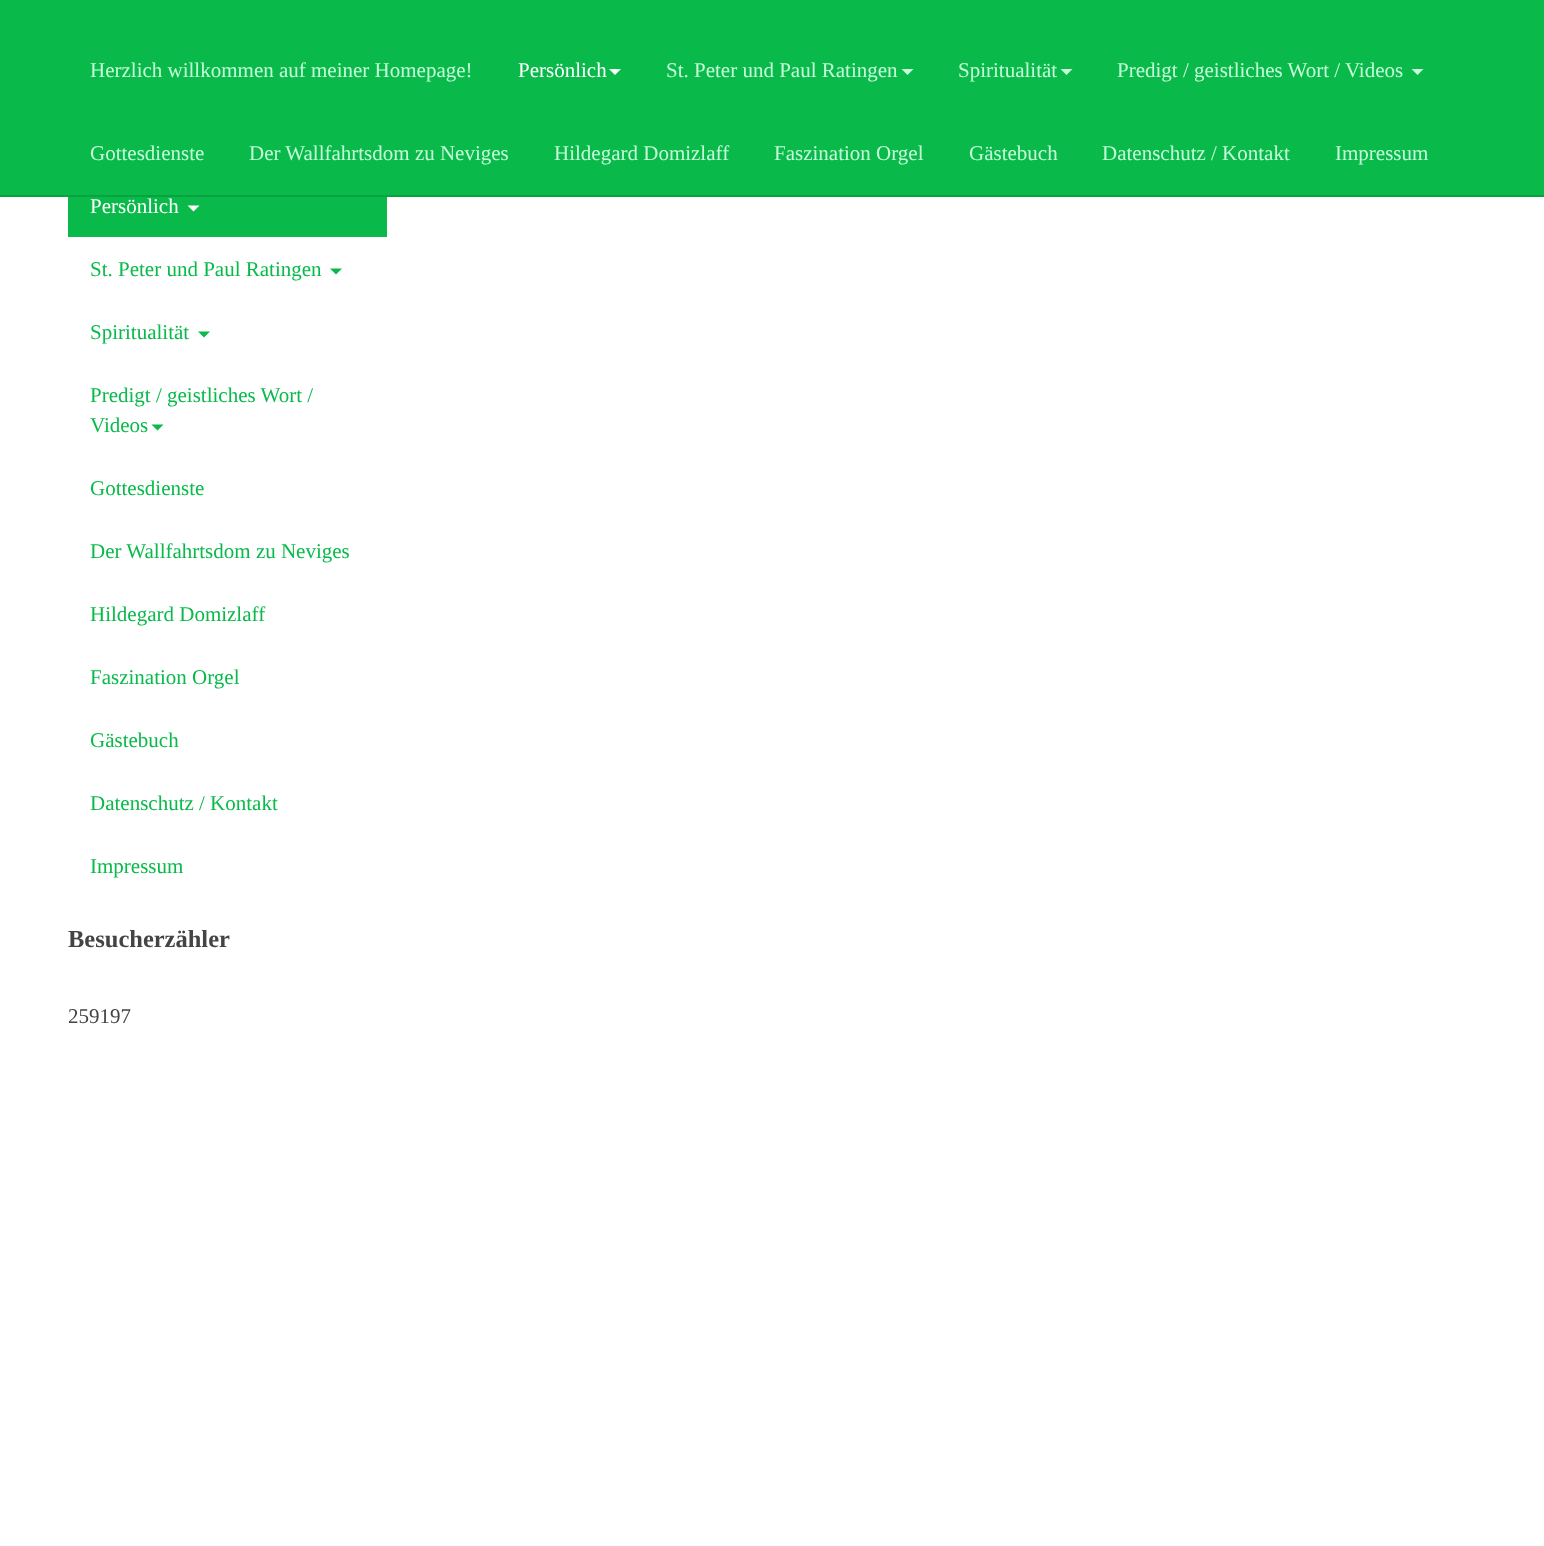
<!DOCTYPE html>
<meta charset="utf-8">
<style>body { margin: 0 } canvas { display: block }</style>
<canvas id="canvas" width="1544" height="1546"></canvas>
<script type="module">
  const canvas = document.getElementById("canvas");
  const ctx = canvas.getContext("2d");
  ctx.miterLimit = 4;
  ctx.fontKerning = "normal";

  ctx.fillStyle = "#ffffff";
  ctx.fillRect(0, 0, 1544, 1546);
  ctx.fillStyle = "#09ba4a";
  ctx.fillRect(0, 0, 1544, 195);
  ctx.fillStyle = "#08a240";
  ctx.fillRect(0, 195, 1544, 2);
  ctx.font = "21px Liberation Serif";
  ctx.fillStyle = "#c6fcda";
  ctx.fillText("Herzlich willkommen auf meiner Homepage!", 90, 77);
  ctx.fillStyle = "#ffffff";
  ctx.fillText("Persönlich", 518, 77);
  ctx.beginPath();
  ctx.moveTo(609, 69);
  ctx.lineTo(621, 69);
  ctx.lineTo(615, 75);
  ctx.closePath();
  ctx.fill();
  ctx.fillStyle = "#c6fcda";
  ctx.fillText("St. Peter und Paul Ratingen", 666, 77);
  ctx.beginPath();
  ctx.moveTo(901.5, 69);
  ctx.lineTo(913.5, 69);
  ctx.lineTo(907.5, 75);
  ctx.closePath();
  ctx.fill();
  ctx.fillText("Spiritualität", 958, 77);
  ctx.beginPath();
  ctx.moveTo(1060.5, 69);
  ctx.lineTo(1072.5, 69);
  ctx.lineTo(1066.5, 75);
  ctx.closePath();
  ctx.fill();
  ctx.fillText("Predigt / geistliches Wort / Videos", 1117, 77);
  ctx.beginPath();
  ctx.moveTo(1411.5, 69);
  ctx.lineTo(1423.5, 69);
  ctx.lineTo(1417.5, 75);
  ctx.closePath();
  ctx.fill();
  ctx.fillText("Gottesdienste", 90, 160);
  ctx.fillText("Der Wallfahrtsdom zu Neviges", 249, 160);
  ctx.fillText("Hildegard Domizlaff", 554, 160);
  ctx.fillText("Faszination Orgel", 774, 160);
  ctx.fillText("Gästebuch", 969, 160);
  ctx.fillText("Datenschutz / Kontakt", 1102, 160);
  ctx.fillText("Impressum", 1335, 160);
  ctx.fillStyle = "#09ba4a";
  ctx.fillRect(68, 197, 319, 40);
  ctx.fillStyle = "#ffffff";
  ctx.fillText("Persönlich", 90, 213);
  ctx.beginPath();
  ctx.moveTo(187.5, 205.5);
  ctx.lineTo(199.5, 205.5);
  ctx.lineTo(193.5, 211.5);
  ctx.closePath();
  ctx.fill();
  ctx.fillStyle = "#09ba4a";
  ctx.fillText("St. Peter und Paul Ratingen", 90, 276);
  ctx.beginPath();
  ctx.moveTo(330, 268.5);
  ctx.lineTo(342, 268.5);
  ctx.lineTo(336, 274.5);
  ctx.closePath();
  ctx.fill();
  ctx.fillText("Spiritualität", 90, 339);
  ctx.beginPath();
  ctx.moveTo(198, 331.5);
  ctx.lineTo(210, 331.5);
  ctx.lineTo(204, 337.5);
  ctx.closePath();
  ctx.fill();
  ctx.fillText("Predigt / geistliches Wort /", 90, 402);
  ctx.fillText("Videos", 90, 432);
  ctx.beginPath();
  ctx.moveTo(151.5, 424.5);
  ctx.lineTo(163.5, 424.5);
  ctx.lineTo(157.5, 430.5);
  ctx.closePath();
  ctx.fill();
  ctx.fillText("Gottesdienste", 90, 495);
  ctx.fillText("Der Wallfahrtsdom zu Neviges", 90, 558);
  ctx.fillText("Hildegard Domizlaff", 90, 621);
  ctx.fillText("Faszination Orgel", 90, 684);
  ctx.fillText("Gästebuch", 90, 747);
  ctx.fillText("Datenschutz / Kontakt", 90, 810);
  ctx.fillText("Impressum", 90, 873);
  ctx.font = "bold 24.5px Liberation Serif";
  ctx.fillStyle = "#444444";
  ctx.fillText("Besucherzähler", 68, 947);
  ctx.font = "21px Liberation Serif";
  ctx.fillText("259197", 68, 1023);
</script>
